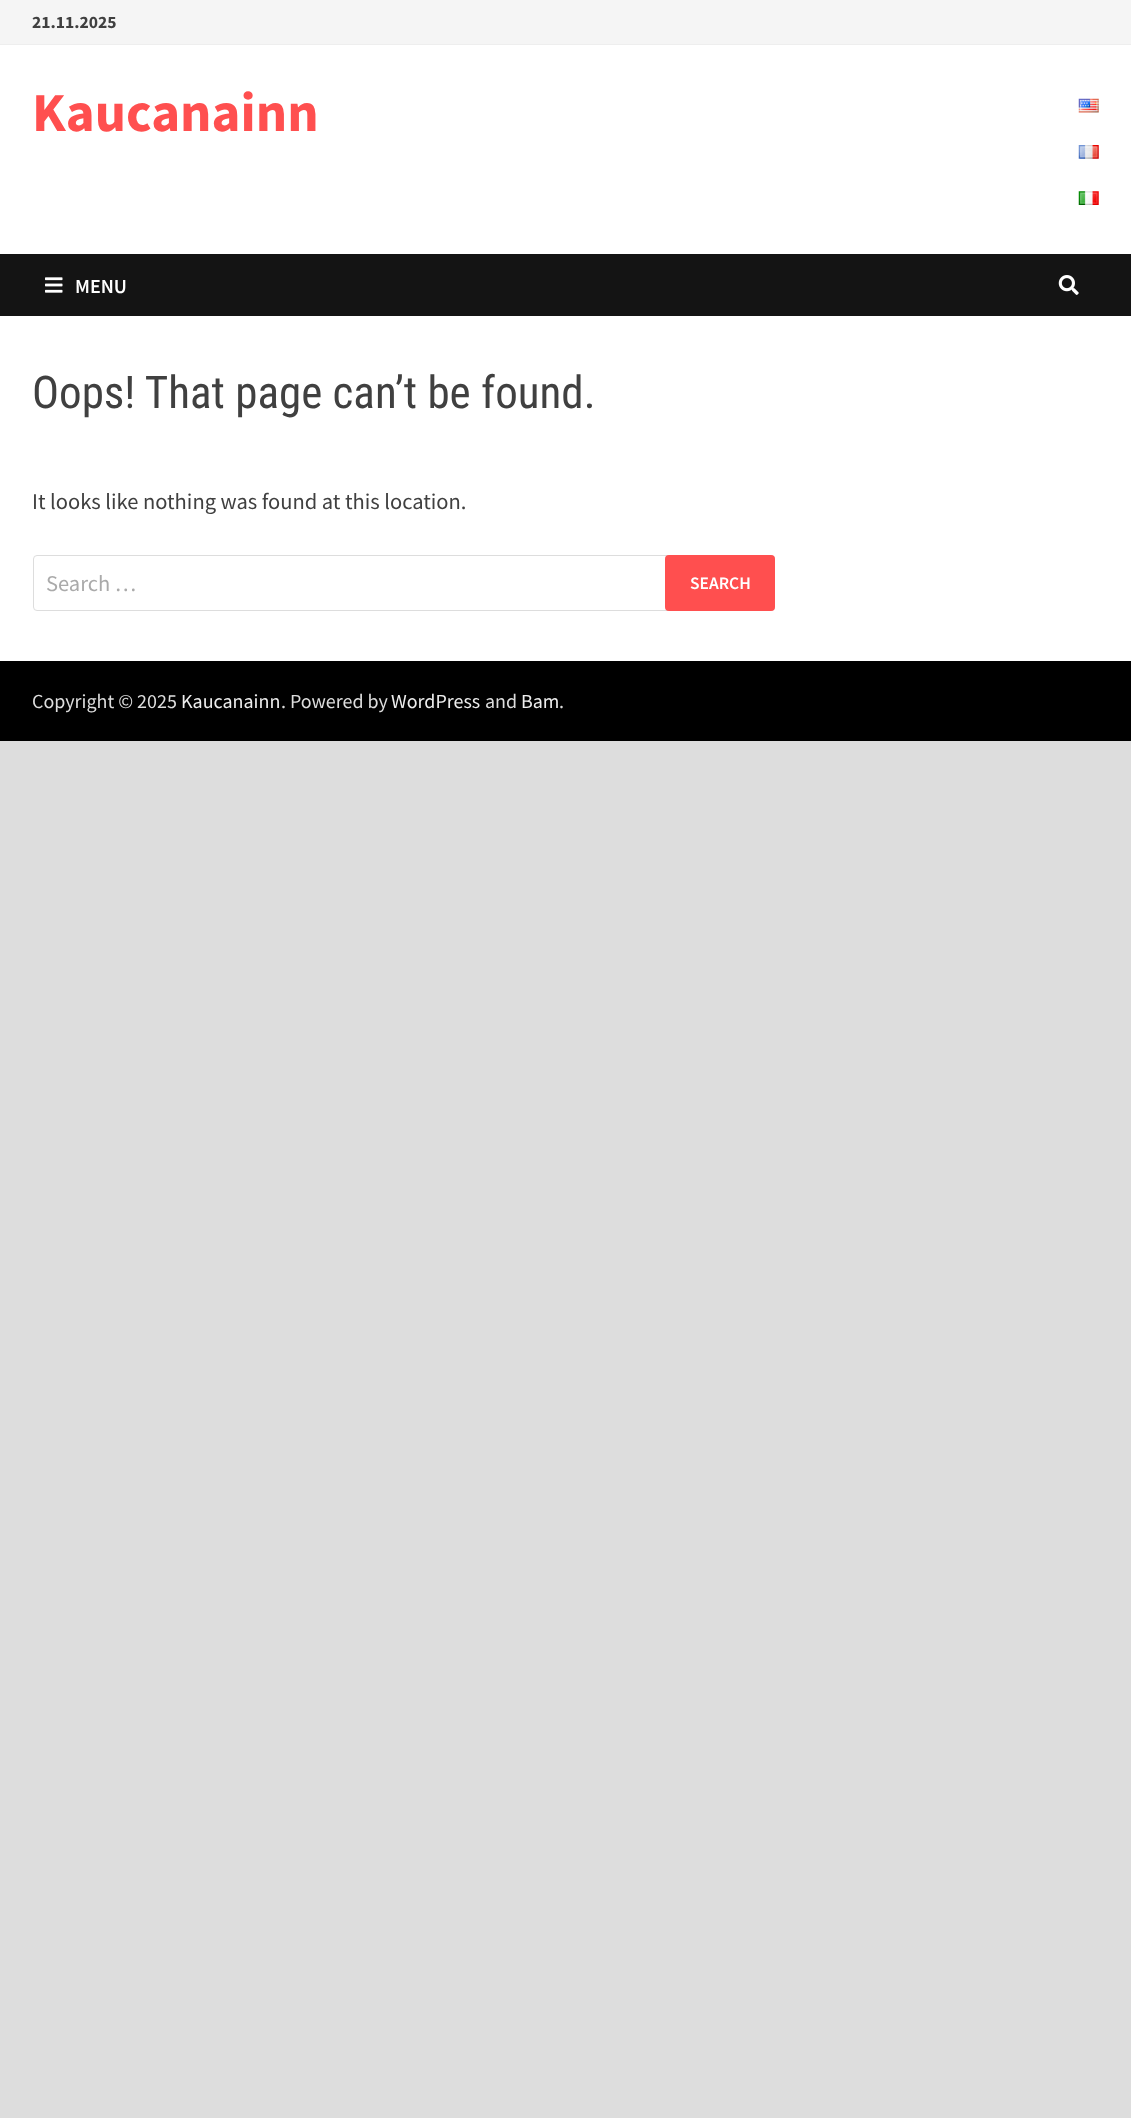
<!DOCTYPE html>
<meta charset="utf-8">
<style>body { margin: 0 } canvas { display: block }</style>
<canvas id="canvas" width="1131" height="2118"></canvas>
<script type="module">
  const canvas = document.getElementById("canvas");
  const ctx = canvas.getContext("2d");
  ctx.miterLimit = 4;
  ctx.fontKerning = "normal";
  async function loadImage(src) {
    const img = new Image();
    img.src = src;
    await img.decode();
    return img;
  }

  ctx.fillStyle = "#dddddd";
  ctx.fillRect(0, 0, 1131, 2118);
  ctx.fillStyle = "#ffffff";
  ctx.fillRect(0, 45, 1131, 616);
  ctx.fillStyle = "#f5f5f5";
  ctx.fillRect(0, 0, 1131, 44);
  ctx.fillStyle = "#eeeeee";
  ctx.fillRect(0, 44, 1131, 1);
  ctx.font = "bold 17.5px Source Sans Pro";
  ctx.fillStyle = "#404040";
  ctx.fillText("21.11.2025", 32, 28);
  ctx.font = "bold 55px Source Sans Pro";
  ctx.fillStyle = "#ff4f4f";
  ctx.fillText("Kaucanainn", 32, 131);
  ctx.drawImage(await loadImage("img1.png"), 1078, 98, 21, 15);
  ctx.drawImage(await loadImage("img2.png"), 1078, 145, 21, 14);
  ctx.drawImage(await loadImage("img3.png"), 1078, 191, 21, 14);
  ctx.fillStyle = "#141414";
  ctx.fillRect(0, 254, 1131, 62);
  ctx.drawImage(await loadImage("img4.png"), 45, 277, 18, 16);
  ctx.font = "600 20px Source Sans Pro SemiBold";
  ctx.fillStyle = "#ffffff";
  ctx.fillText("MENU", 75, 293);
  ctx.drawImage(await loadImage("img5.png"), 1058, 275, 21, 20);
  ctx.font = "45px Roboto Condensed";
  ctx.fillStyle = "#404040";
  ctx.fillText("Oops! That page can’t be found.", 32, 408);
  ctx.font = "22.5px Source Sans Pro";
  ctx.fillText("It looks like nothing was found at this location.", 32, 509);
  ctx.beginPath();
  ctx.roundRect(33.5, 555.5, 741, 55, 3.5);
  ctx.strokeStyle = "#dddddd";
  ctx.stroke();
  ctx.fillStyle = "#aaaaaa";
  ctx.fillText("Search …", 46, 591);
  ctx.fillStyle = "#ff4f4f";
  ctx.beginPath();
  ctx.roundRect(665, 555, 110, 56, 4);
  ctx.fill();
  ctx.font = "600 17.5px Source Sans Pro SemiBold";
  ctx.fillStyle = "#ffffff";
  ctx.fillText("SEARCH", 690, 589);
  ctx.fillStyle = "#000000";
  ctx.fillRect(0, 661, 1131, 80);
  ctx.font = "20px Source Sans Pro";
  ctx.fillStyle = "#dddddd";
  ctx.fillText("Copyright © 2025", 32, 708);
  ctx.fillStyle = "#eeeeee";
  ctx.fillText("Kaucanainn", 181, 708);
  ctx.fillStyle = "#dddddd";
  ctx.fillText(". Powered by", 281, 708);
  ctx.fillStyle = "#eeeeee";
  ctx.fillText("WordPress", 391, 708);
  ctx.fillStyle = "#dddddd";
  ctx.fillText("and", 485, 708);
  ctx.fillStyle = "#eeeeee";
  ctx.fillText("Bam", 521, 708);
  ctx.fillStyle = "#dddddd";
  ctx.fillText(".", 559, 708);
</script>
